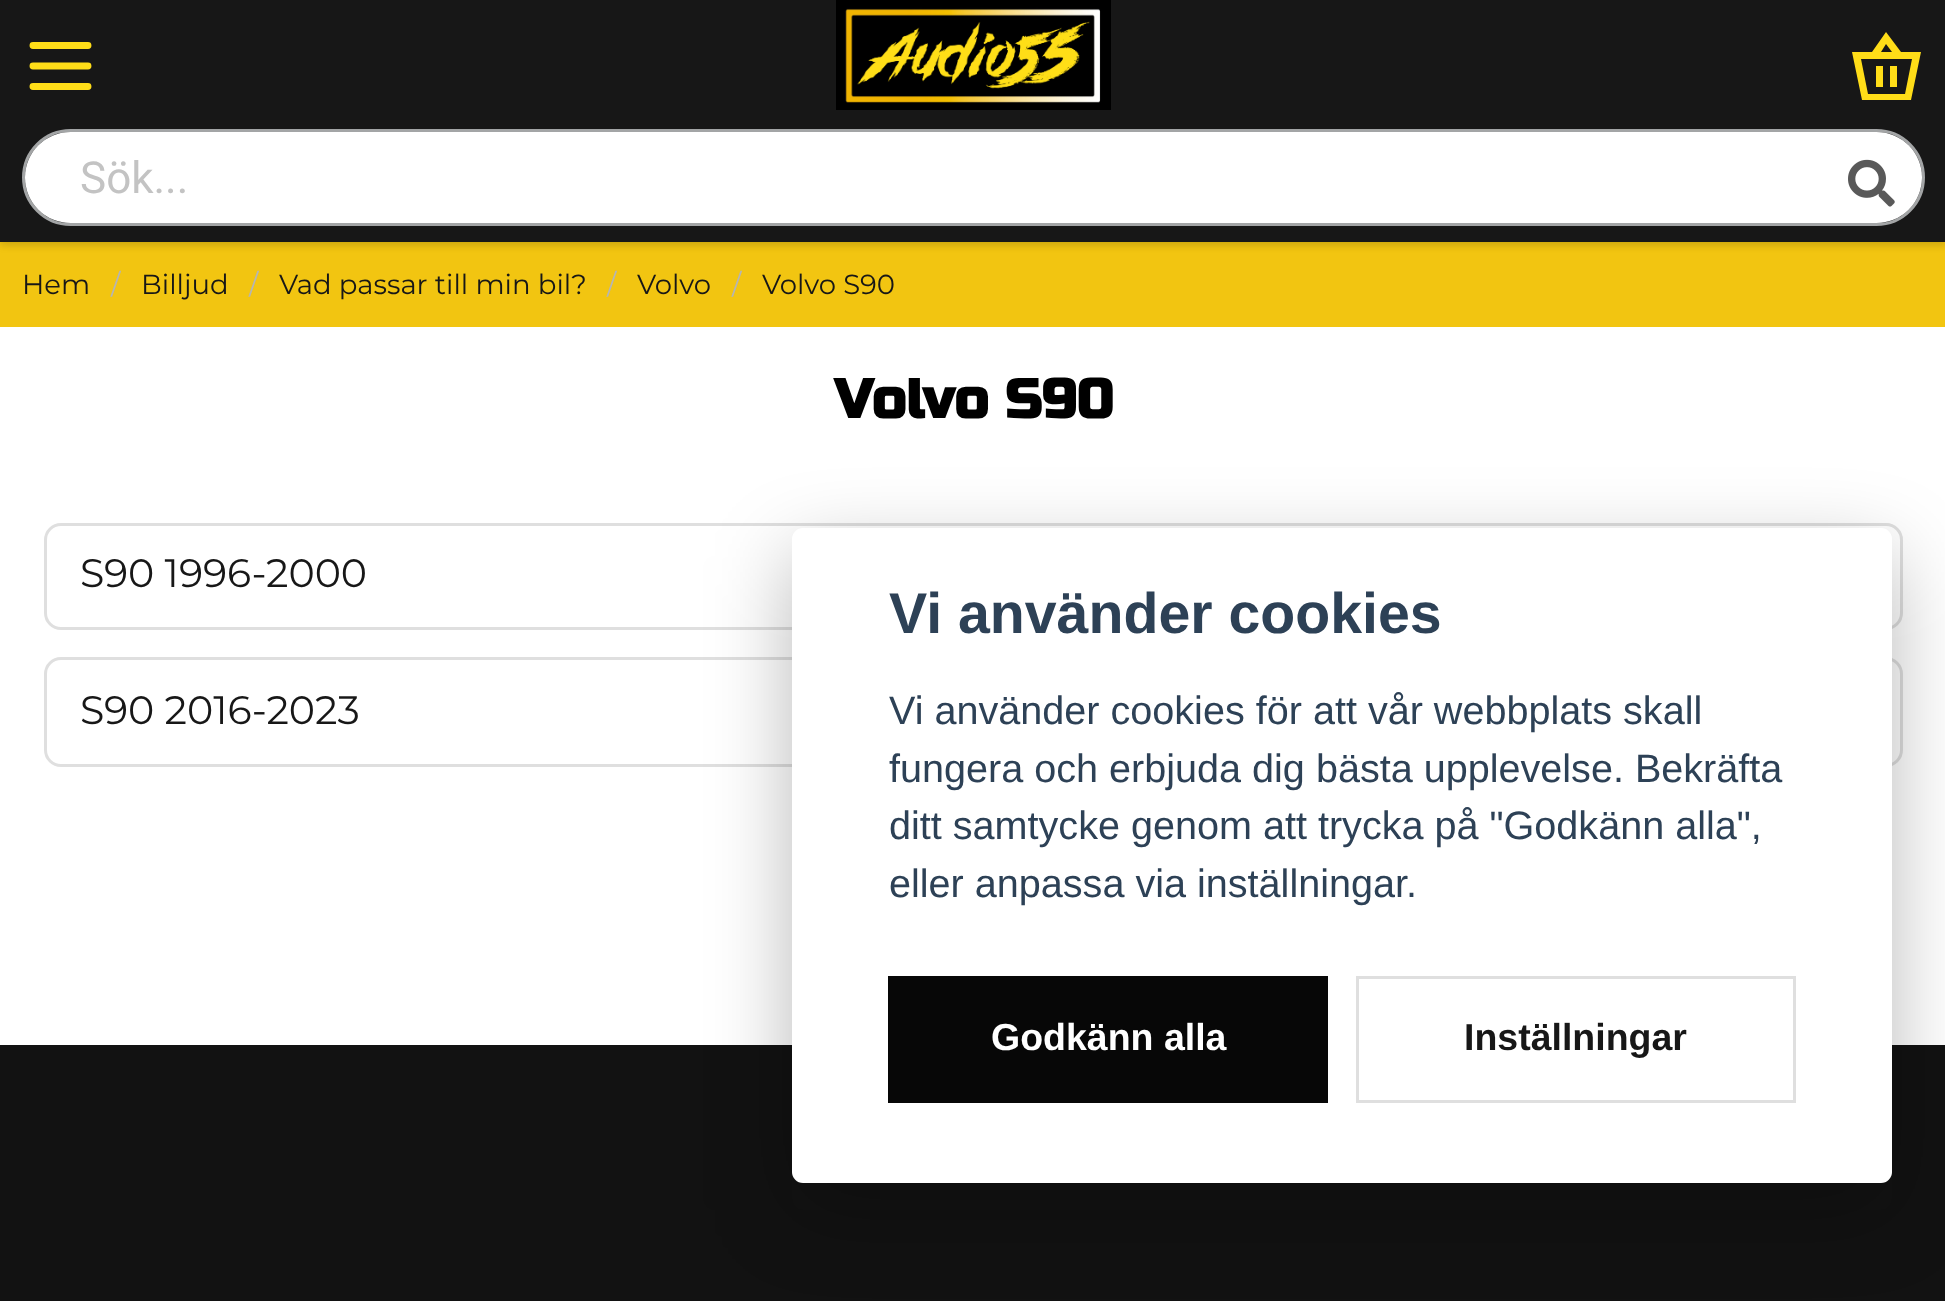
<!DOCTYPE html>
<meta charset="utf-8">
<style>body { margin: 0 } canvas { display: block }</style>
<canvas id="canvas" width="1945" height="1301"></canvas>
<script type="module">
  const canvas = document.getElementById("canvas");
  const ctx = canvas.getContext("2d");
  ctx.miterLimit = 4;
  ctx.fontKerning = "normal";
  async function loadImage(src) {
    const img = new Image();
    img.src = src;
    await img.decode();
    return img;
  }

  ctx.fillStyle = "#ffffff";
  ctx.fillRect(0, 0, 1945, 1301);
  ctx.fillStyle = "#f2c511";
  ctx.fillRect(0, 242, 1945, 85);
  ctx.fillStyle = "rgba(0, 0, 0, 0.06)";
  ctx.filter = "blur(3px)";
  ctx.beginPath();
  ctx.rect(0, 3, 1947, 242);
  ctx.fill();
  ctx.filter = "none";
  ctx.fillStyle = "rgba(0, 0, 0, 0.1)";
  ctx.filter = "blur(4px)";
  ctx.beginPath();
  ctx.rect(0, 3, 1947, 242);
  ctx.fill();
  ctx.filter = "none";
  ctx.fillStyle = "#171717";
  ctx.fillRect(0, 0, 1945, 242);
  ctx.beginPath();
  ctx.moveTo(33, 45.5);
  ctx.lineTo(88, 45.5);
  ctx.moveTo(33, 66);
  ctx.lineTo(88, 66);
  ctx.moveTo(33, 86.5);
  ctx.lineTo(88, 86.5);
  ctx.strokeStyle = "#ffdd18";
  ctx.lineWidth = 6.9;
  ctx.lineCap = "round";
  ctx.lineJoin = "round";
  ctx.stroke();
  ctx.drawImage(await loadImage("img1.png"), 836, 0, 275, 110);
  ctx.fillStyle = "#ffdd18";
  ctx.beginPath();
  ctx.moveTo(1886, 32);
  ctx.lineTo(1872, 52);
  ctx.lineTo(1852, 52);
  ctx.lineTo(1862, 100);
  ctx.lineTo(1911, 100);
  ctx.lineTo(1921, 52);
  ctx.lineTo(1901, 52);
  ctx.closePath();
  ctx.moveTo(1886, 44);
  ctx.lineTo(1892, 52);
  ctx.lineTo(1881, 52);
  ctx.closePath();
  ctx.moveTo(1912, 59);
  ctx.lineTo(1905, 94);
  ctx.lineTo(1868, 94);
  ctx.lineTo(1861, 59);
  ctx.closePath();
  ctx.fill();
  ctx.fillRect(1876, 66, 7, 21);
  ctx.fillRect(1890, 66, 7, 21);
  ctx.beginPath();
  ctx.roundRect(23.5, 130.5, 1900, 94, 47);
  ctx.strokeStyle = "#a3a5a6";
  ctx.lineWidth = 3;
  ctx.lineJoin = "miter";
  ctx.stroke();
  ctx.fillStyle = "#ffffff";
  ctx.beginPath();
  ctx.roundRect(25, 132, 1897, 91, 45.5);
  ctx.fill();
  ctx.font = "44px Roboto";
  ctx.fillStyle = "#c3c3c3";
  ctx.fillText("Sök...", 80, 193);
  ctx.drawImage(await loadImage("img2.png"), 1848, 159, 47, 48);
  ctx.font = "27.5px Montserrat";
  ctx.fillStyle = "#171717";
  ctx.fillText("Hem", 22, 294);
  ctx.fillStyle = "#b5b5b5";
  ctx.fillText("/", 111, 294);
  ctx.fillStyle = "#171717";
  ctx.fillText("Billjud", 141, 294);
  ctx.fillStyle = "#b5b5b5";
  ctx.fillText("/", 249, 294);
  ctx.fillStyle = "#171717";
  ctx.fillText("Vad passar till min bil?", 279, 294);
  ctx.fillStyle = "#b5b5b5";
  ctx.fillText("/", 607, 294);
  ctx.fillStyle = "#171717";
  ctx.fillText("Volvo", 637, 294);
  ctx.fillStyle = "#b5b5b5";
  ctx.fillText("/", 732, 294);
  ctx.fillStyle = "#171717";
  ctx.fillText("Volvo S90", 762, 294);
  ctx.font = "bold 55px Russo One";
  ctx.fillStyle = "#000000";
  ctx.fillText("Volvo S90", 834, 418);
  ctx.beginPath();
  ctx.roundRect(45.5, 524.5, 1856, 104, 15.5);
  ctx.strokeStyle = "#dfdfdf";
  ctx.stroke();
  ctx.font = "39.6px Montserrat";
  ctx.fillStyle = "#171717";
  ctx.fillText("S90 1996-2000", 80, 587);
  ctx.beginPath();
  ctx.roundRect(45.5, 658.5, 1856, 107, 15.5);
  ctx.stroke();
  ctx.fillText("S90 2016-2023", 80, 724);
  ctx.fillStyle = "#121212";
  ctx.fillRect(0, 1045, 1945, 256);
  ctx.fillStyle = "rgba(2, 2, 3, 0.28)";
  ctx.filter = "blur(41px)";
  ctx.beginPath();
  ctx.roundRect(792, 556, 1100, 654, 11);
  ctx.fill();
  ctx.filter = "none";
  ctx.fillStyle = "#ffffff";
  ctx.beginPath();
  ctx.roundRect(792, 528, 1100, 655, 11);
  ctx.fill();
  ctx.font = "bold 57.25px Liberation Sans";
  ctx.fillStyle = "#2d4156";
  ctx.fillText("Vi använder cookies", 889, 633);
  ctx.font = "39.6px Liberation Sans";
  ctx.fillText("Vi använder cookies för att vår webbplats skall", 889, 724);
  ctx.fillText("fungera och erbjuda dig bästa upplevelse. Bekräfta", 889, 782);
  ctx.fillText("ditt samtycke genom att trycka på \"Godkänn alla\",", 889, 839);
  ctx.fillText("eller anpassa via inställningar.", 889, 897);
  ctx.fillStyle = "#070707";
  ctx.fillRect(888, 976, 440, 127);
  ctx.font = "bold 37.5px Liberation Sans";
  ctx.fillStyle = "#ffffff";
  ctx.fillText("Godkänn alla", 991, 1050);
  ctx.strokeRect(1357.5, 977.5, 437, 124);
  ctx.fillStyle = "#171717";
  ctx.fillText("Inställningar", 1464, 1050);
</script>
